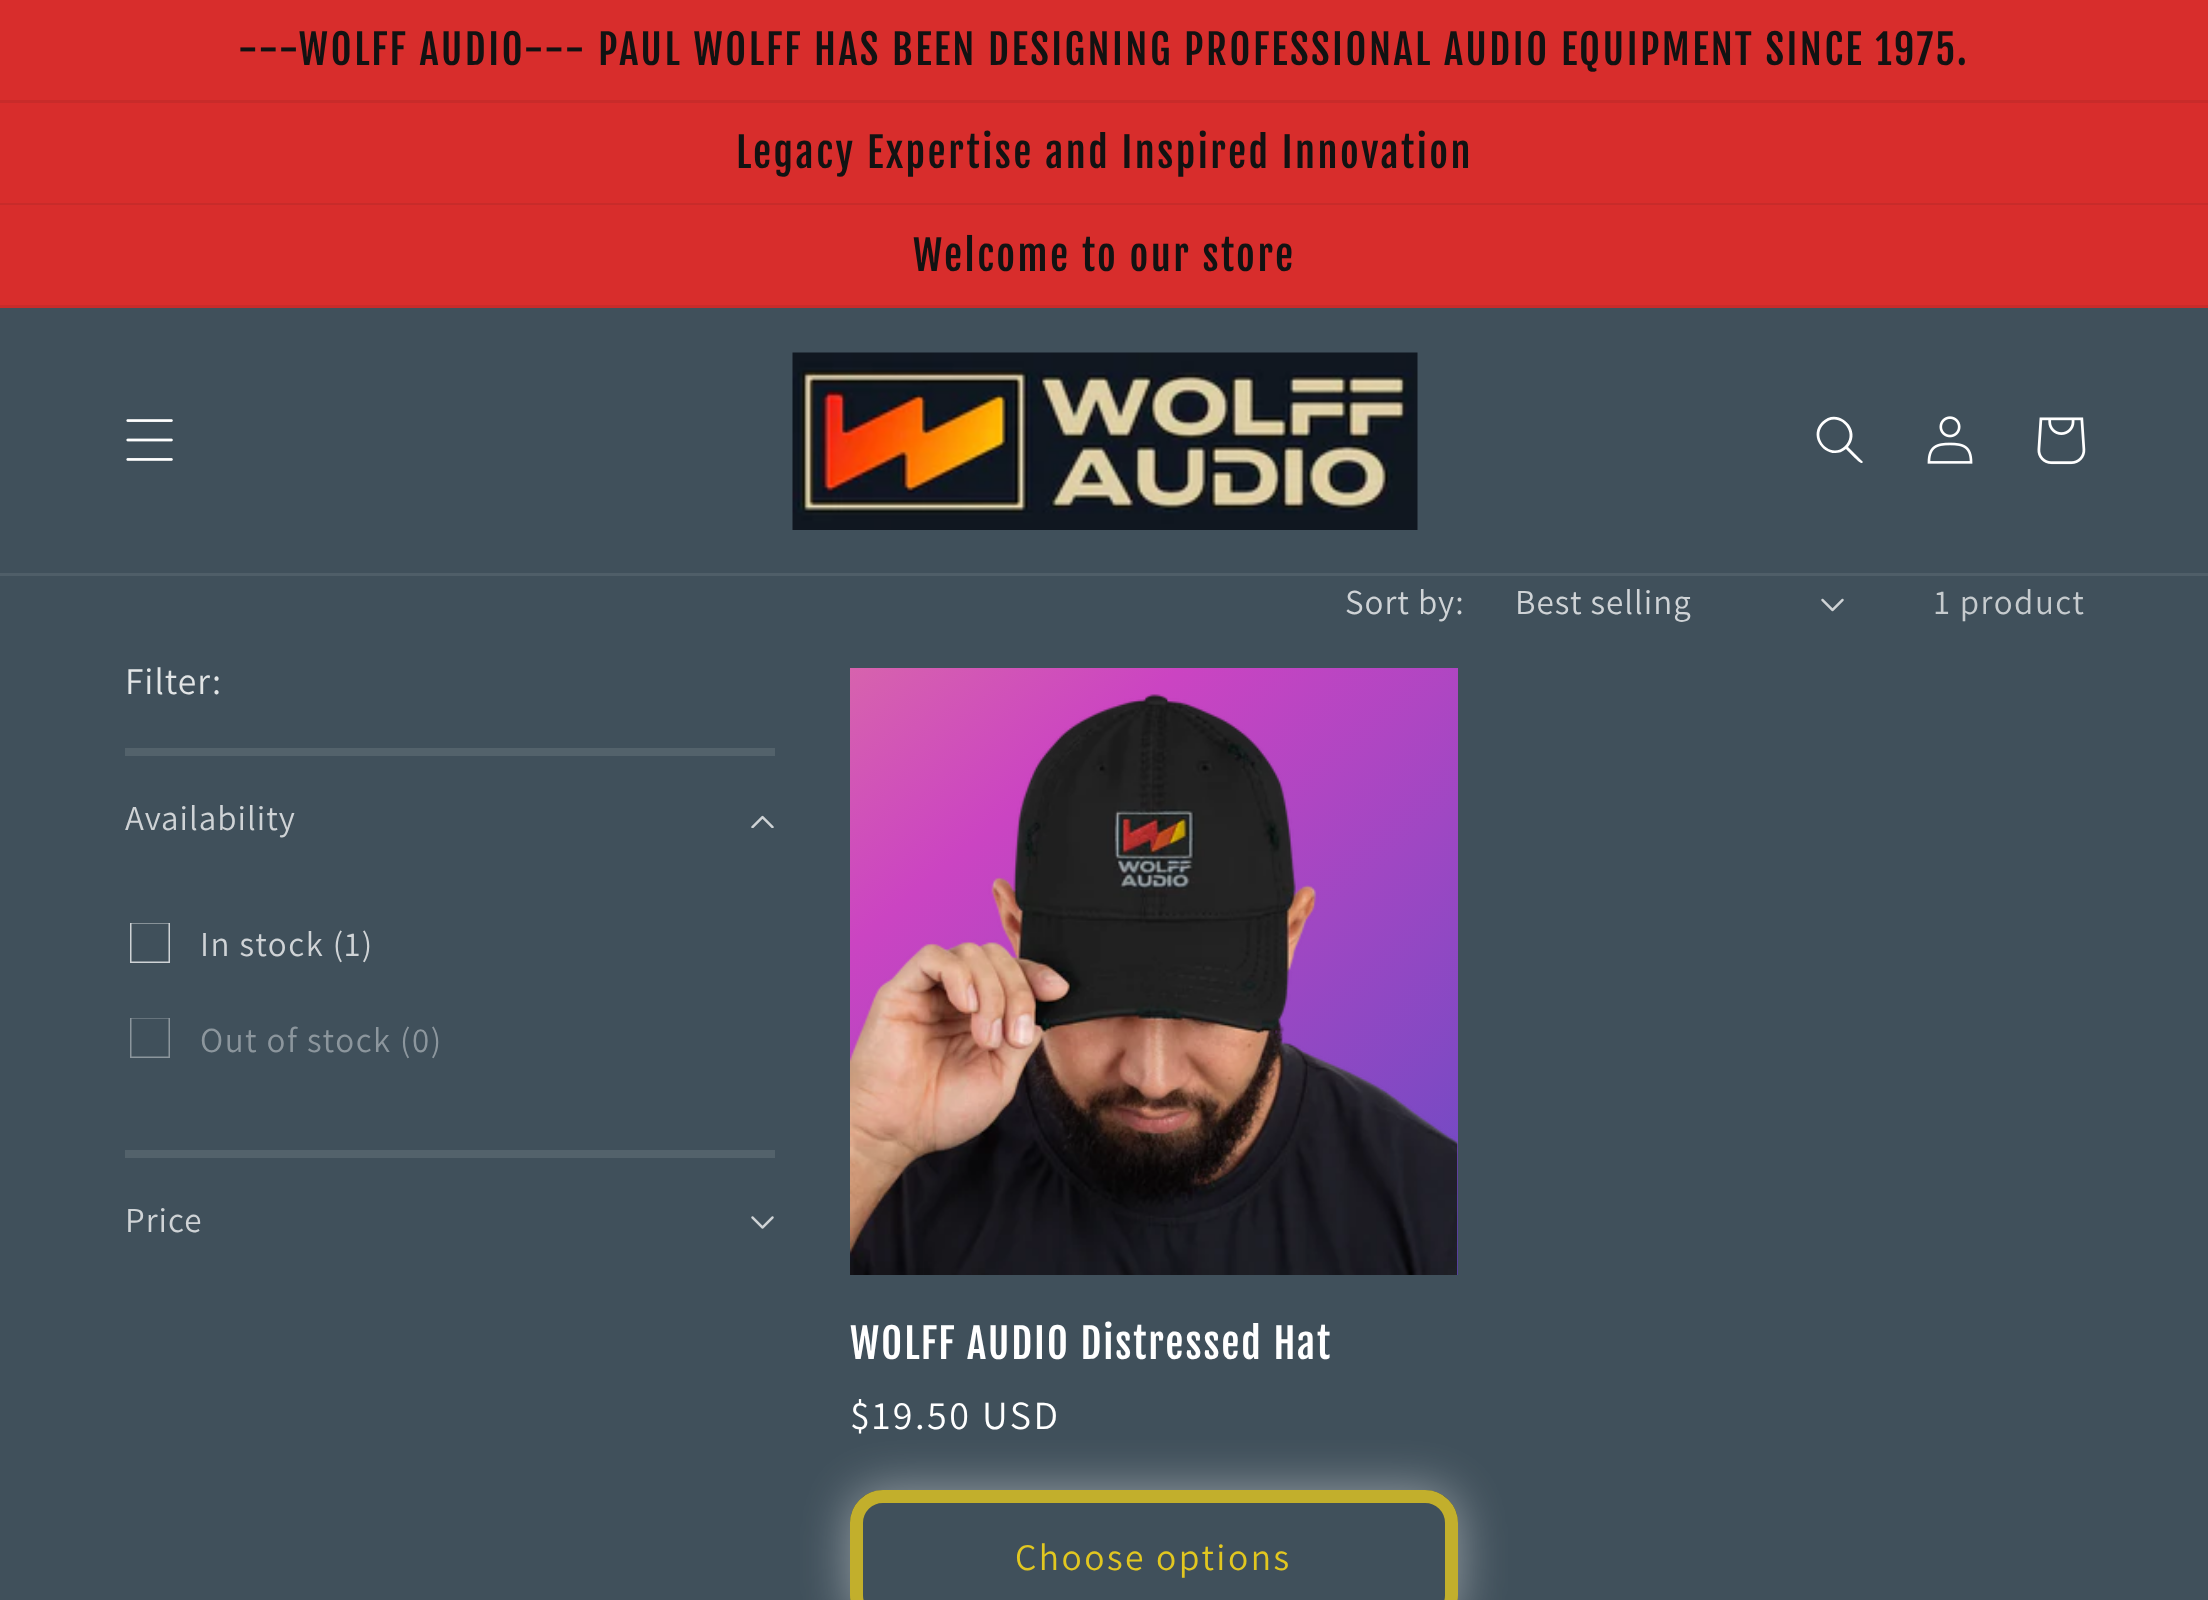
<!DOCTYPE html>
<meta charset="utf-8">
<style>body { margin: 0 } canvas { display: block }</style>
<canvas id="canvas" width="2208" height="1600"></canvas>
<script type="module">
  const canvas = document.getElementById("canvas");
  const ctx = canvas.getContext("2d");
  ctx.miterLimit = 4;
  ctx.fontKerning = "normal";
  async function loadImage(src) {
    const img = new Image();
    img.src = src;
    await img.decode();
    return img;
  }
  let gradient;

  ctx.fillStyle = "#40505b";
  ctx.fillRect(0, 0, 2208, 1600);
  ctx.fillStyle = "#d82d2c";
  ctx.fillRect(0, 0, 2208, 100);
  ctx.fillStyle = "#c82b2a";
  ctx.fillRect(0, 100, 2208, 3);
  ctx.letterSpacing = "2.5px";
  ctx.font = "40.6px Fjalla One";
  ctx.fillStyle = "#121212";
  ctx.fillText("---WOLFF AUDIO--- PAUL WOLFF HAS BEEN DESIGNING PROFESSIONAL AUDIO EQUIPMENT SINCE 1975.", 238, 65);
  ctx.fillStyle = "#d82d2c";
  ctx.fillRect(0, 103, 2208, 100);
  ctx.fillStyle = "#c82b2a";
  ctx.fillRect(0, 203, 2208, 2);
  ctx.fillStyle = "#121212";
  ctx.fillText("Legacy Expertise and Inspired Innovation", 736, 168);
  ctx.fillStyle = "#d82d2c";
  ctx.fillRect(0, 205, 2208, 100);
  ctx.fillStyle = "#c82b2a";
  ctx.fillRect(0, 305, 2208, 3);
  ctx.fillStyle = "#121212";
  ctx.fillText("Welcome to our store", 913, 271);
  ctx.fillStyle = "#4f5e68";
  ctx.fillRect(0, 573, 2208, 3);
  ctx.drawImage(await loadImage("img1.png"), 126, 419, 47, 42);
  ctx.drawImage(await loadImage("img2.png"), 792, 352, 626, 178);
  ctx.fillStyle = "#ffffff";
  ctx.beginPath();
  ctx.moveTo(1845, 446);
  ctx.bezierCurveTo(1831, 460, 1810, 438, 1824, 424);
  ctx.bezierCurveTo(1838, 410, 1859, 432, 1845, 446);
  ctx.closePath();
  ctx.moveTo(1846, 449);
  ctx.bezierCurveTo(1829, 463, 1806, 438, 1822, 422);
  ctx.bezierCurveTo(1838, 406, 1863, 430, 1848, 447);
  ctx.lineTo(1863, 462);
  ctx.lineTo(1862, 463);
  ctx.bezierCurveTo(1860, 464, 1848, 451, 1846, 449);
  ctx.closePath();
  ctx.fill("evenodd");
  ctx.drawImage(await loadImage("img3.png"), 1927, 416, 46, 48);
  ctx.drawImage(await loadImage("img4.png"), 2037, 417, 49, 48);
  ctx.letterSpacing = "1px";
  ctx.font = "35px Assistant";
  ctx.fillStyle = "#cfd3d6";
  ctx.fillText("Sort by:", 1345, 614);
  ctx.fillText("Best selling", 1515, 614);
  ctx.drawImage(await loadImage("img5.png"), 1821, 598, 23, 14);
  ctx.letterSpacing = "1.5px";
  ctx.fillStyle = "#c6cbce";
  ctx.fillText("1 product", 1934, 614);
  ctx.letterSpacing = "1px";
  ctx.font = "37.5px Assistant";
  ctx.fillStyle = "#e2e5e6";
  ctx.fillText("Filter:", 125, 694);
  ctx.fillStyle = "#53626b";
  ctx.fillRect(125, 748, 650, 8);
  ctx.font = "35px Assistant";
  ctx.fillStyle = "#cfd3d6";
  ctx.fillText("Availability", 125, 830);
  ctx.drawImage(await loadImage("img6.png"), 751, 815, 23, 13);
  ctx.save();
  ctx.beginPath();
  ctx.rect(130, 923, 40, 40);
  ctx.clip();
  ctx.strokeStyle = "#cfd3d6";
  ctx.lineWidth = 2.5;
  ctx.strokeRect(130.25, 922.25, 39.5, 40.5);
  ctx.restore();
  ctx.letterSpacing = "1.5px";
  ctx.fillText("In stock (1)", 200, 956);
  ctx.save();
  ctx.beginPath();
  ctx.rect(130, 1018, 40, 40);
  ctx.clip();
  ctx.strokeStyle = "#8c969d";
  ctx.lineWidth = 2.5;
  ctx.strokeRect(130.25, 1017.25, 39.5, 40.5);
  ctx.restore();
  ctx.fillStyle = "#8c969d";
  ctx.fillText("Out of stock (0)", 200, 1052);
  ctx.fillStyle = "#53626b";
  ctx.fillRect(125, 1150, 650, 8);
  ctx.letterSpacing = "1px";
  ctx.fillStyle = "#cfd3d6";
  ctx.fillText("Price", 125, 1232);
  ctx.drawImage(await loadImage("img7.png"), 751, 1216, 23, 13);
  gradient = ctx.createLinearGradient(1955, 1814, 255, -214);
  gradient.addColorStop(0.16, "#384ec5");
  gradient.addColorStop(0.52, "#cb44c2");
  gradient.addColorStop(0.87, "#ffc968");
  ctx.fillStyle = gradient;
  ctx.fillRect(850, 668, 608, 607);
  ctx.drawImage(await loadImage("img8.png"), 850, 694, 608, 581);
  ctx.letterSpacing = "1.9px";
  ctx.font = "40.6px Fjalla One";
  ctx.fillStyle = "#ffffff";
  ctx.fillText("WOLFF AUDIO Distressed Hat", 850, 1359);
  ctx.letterSpacing = "2.5px";
  ctx.font = "40px Assistant";
  ctx.fillText("$19.50 USD", 850, 1429);
  ctx.fillStyle = "rgba(255, 255, 255, 0.45)";
  ctx.filter = "blur(25px)";
  ctx.beginPath();
  ctx.roundRect(850, 1490, 608, 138, 33);
  ctx.fill();
  ctx.filter = "none";
  ctx.fillStyle = "#40505b";
  ctx.beginPath();
  ctx.roundRect(850, 1490, 608, 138, 33);
  ctx.fill();
  ctx.beginPath();
  ctx.roundRect(856.5, 1496.5, 595, 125, 26.5);
  ctx.strokeStyle = "#40505b";
  ctx.lineWidth = 13;
  ctx.stroke();
  ctx.beginPath();
  ctx.roundRect(856.5, 1496.5, 595, 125, 26.5);
  ctx.strokeStyle = "rgba(226, 199, 32, 0.8)";
  ctx.stroke();
  ctx.font = "37.5px Assistant";
  ctx.fillStyle = "#e2c720";
  ctx.fillText("Choose options", 1015, 1570);
</script>
